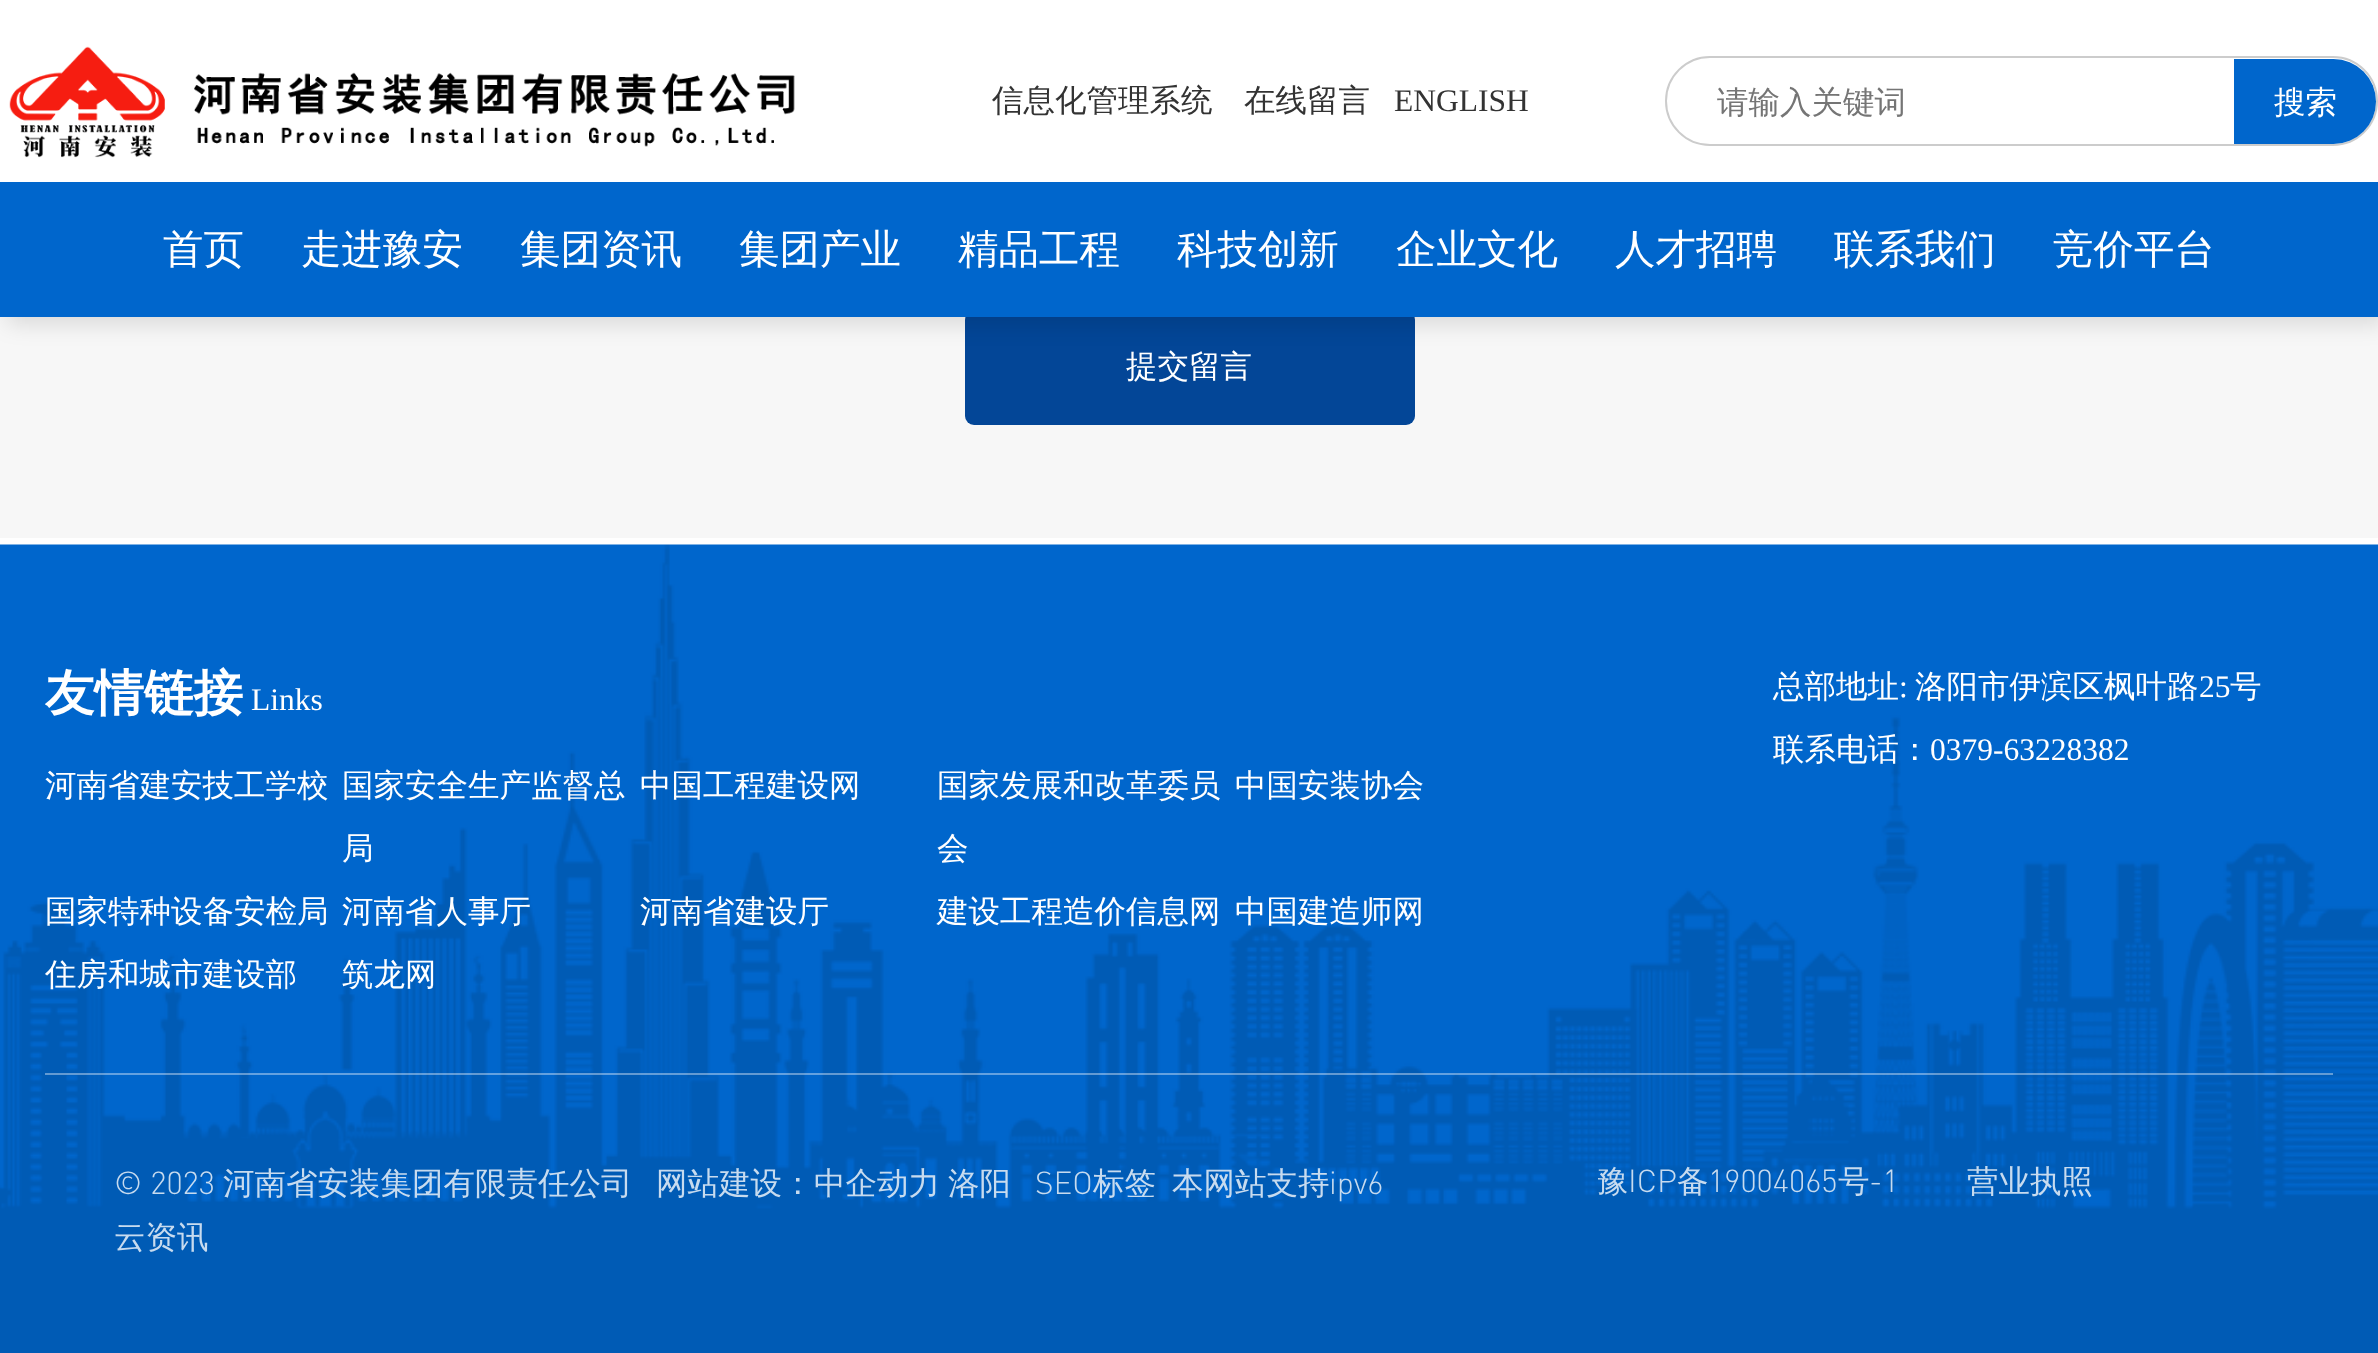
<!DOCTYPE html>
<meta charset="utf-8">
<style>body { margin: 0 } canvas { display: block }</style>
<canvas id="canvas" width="2378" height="1353"></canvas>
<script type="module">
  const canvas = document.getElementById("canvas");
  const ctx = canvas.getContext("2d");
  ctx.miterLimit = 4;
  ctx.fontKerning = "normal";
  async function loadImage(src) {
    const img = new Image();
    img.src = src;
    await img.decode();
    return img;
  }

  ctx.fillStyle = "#ffffff";
  ctx.fillRect(0, 0, 2378, 1353);
  ctx.fillStyle = "#f7f7f7";
  ctx.fillRect(0, 317, 2378, 221);
  ctx.fillStyle = "#034697";
  ctx.beginPath();
  ctx.roundRect(965, 311, 450, 114, 9);
  ctx.fill();
  ctx.fillStyle = "rgba(0, 0, 0, 0.12)";
  ctx.filter = "blur(11px)";
  ctx.beginPath();
  ctx.rect(7, 7, 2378, 317);
  ctx.fill();
  ctx.filter = "none";
  ctx.fillStyle = "#ffffff";
  ctx.fillRect(0, 0, 2378, 182);
  ctx.drawImage(await loadImage("img1.png"), 9, 46, 786, 112);
  ctx.font = "500 31.5px WenQuanYi Zen Hei";
  ctx.fillStyle = "#333333";
  ctx.fillText("信息化管理系统", 992, 111);
  ctx.fillText("在线留言", 1244, 111);
  ctx.font = "31.5px Liberation Serif";
  ctx.fillText("ENGLISH", 1394, 111);
  ctx.beginPath();
  ctx.roundRect(1666, 57, 711, 88, 44);
  ctx.strokeStyle = "#cccccc";
  ctx.lineWidth = 2;
  ctx.stroke();
  ctx.font = "500 31.5px WenQuanYi Zen Hei";
  ctx.fillStyle = "#757575";
  ctx.fillText("请输入关键词", 1717, 113);
  ctx.fillStyle = "#0066cc";
  ctx.beginPath();
  ctx.roundRect(2234, 59, 142, 85, [0, 42.5, 42.5, 0]);
  ctx.fill();
  ctx.fillStyle = "#ffffff";
  ctx.fillText("搜索", 2274, 113);
  ctx.fillStyle = "#0066cc";
  ctx.fillRect(0, 182, 2378, 135);
  ctx.font = "500 40.5px WenQuanYi Zen Hei";
  ctx.fillStyle = "#ffffff";
  ctx.fillText("首页", 163, 263);
  ctx.fillText("走进豫安", 301, 263);
  ctx.fillText("集团资讯", 520, 263);
  ctx.fillText("集团产业", 739, 263);
  ctx.fillText("精品工程", 958, 263);
  ctx.fillText("科技创新", 1177, 263);
  ctx.fillText("企业文化", 1396, 263);
  ctx.fillText("人才招聘", 1615, 263);
  ctx.fillText("联系我们", 1834, 263);
  ctx.fillText("竞价平台", 2053, 263);
  ctx.font = "500 31.5px WenQuanYi Zen Hei";
  ctx.fillText("提交留言", 1126, 377);
  ctx.drawImage(await loadImage("img2.png"), 0, 544, 2378, 809);
  ctx.font = "bold 49.5px WenQuanYi Zen Hei";
  ctx.fillText("友情链接", 45, 710);
  ctx.font = "31.5px Liberation Serif";
  ctx.fillText("Links", 251, 710);
  ctx.font = "500 31.5px WenQuanYi Zen Hei";
  ctx.fillText("河南省建安技工学校", 45, 796);
  ctx.fillText("国家安全生产监督总", 342, 796);
  ctx.fillText("局", 342, 859);
  ctx.fillText("中国工程建设网", 640, 796);
  ctx.fillText("国家发展和改革委员", 937, 796);
  ctx.fillText("会", 937, 859);
  ctx.fillText("中国安装协会", 1235, 796);
  ctx.fillText("国家特种设备安检局", 45, 922);
  ctx.fillText("河南省人事厅", 342, 922);
  ctx.fillText("河南省建设厅", 640, 922);
  ctx.fillText("建设工程造价信息网", 937, 922);
  ctx.fillText("中国建造师网", 1235, 922);
  ctx.fillText("住房和城市建设部", 45, 985);
  ctx.fillText("筑龙网", 342, 985);
  ctx.fillText("总部地址", 1773, 697);
  ctx.font = "31.5px Liberation Serif";
  ctx.fillText(":", 1899, 697);
  ctx.font = "500 31.5px WenQuanYi Zen Hei";
  ctx.fillText("洛阳市伊滨区枫叶路", 1915, 697);
  ctx.font = "31.5px Liberation Serif";
  ctx.fillText("25", 2199, 697);
  ctx.font = "500 31.5px WenQuanYi Zen Hei";
  ctx.fillText("号", 2230, 697);
  ctx.fillText("联系电话：", 1773, 760);
  ctx.font = "31.5px Liberation Serif";
  ctx.fillText("0379-63228382", 1930, 760);
  ctx.fillStyle = "rgba(255, 255, 255, 0.39)";
  ctx.fillRect(45, 1073, 2288, 2);
  ctx.font = "300 31.5px DIN";
  ctx.fillStyle = "#c7dbef";
  ctx.fillText("© 2023", 114, 1194);
  ctx.font = "500 31.5px WenQuanYi Zen Hei";
  ctx.fillText("河南省安装集团有限责任公司", 223, 1194);
  ctx.fillText("网站建设：", 656, 1194);
  ctx.fillText("中企动力", 814, 1194);
  ctx.fillText("洛阳", 948, 1194);
  ctx.font = "300 31.5px DIN";
  ctx.fillText("SEO", 1035, 1194);
  ctx.font = "500 31.5px WenQuanYi Zen Hei";
  ctx.fillText("标签", 1093, 1194);
  ctx.fillText("本网站支持", 1172, 1194);
  ctx.font = "300 31.5px DIN";
  ctx.fillText("ipv6", 1329, 1194);
  ctx.font = "500 31.5px WenQuanYi Zen Hei";
  ctx.fillText("云资讯", 114, 1248);
  ctx.fillText("豫", 1597, 1192);
  ctx.font = "300 31.5px DIN";
  ctx.fillText("ICP", 1628, 1192);
  ctx.font = "500 31.5px WenQuanYi Zen Hei";
  ctx.fillText("备", 1677, 1192);
  ctx.font = "300 31.5px DIN";
  ctx.fillText("19004065", 1708, 1192);
  ctx.font = "500 31.5px WenQuanYi Zen Hei";
  ctx.fillText("号", 1838, 1192);
  ctx.font = "300 31.5px DIN";
  ctx.fillText("-1", 1869, 1192);
  ctx.font = "500 31.5px WenQuanYi Zen Hei";
  ctx.fillText("营业执照", 1967, 1192);
</script>
